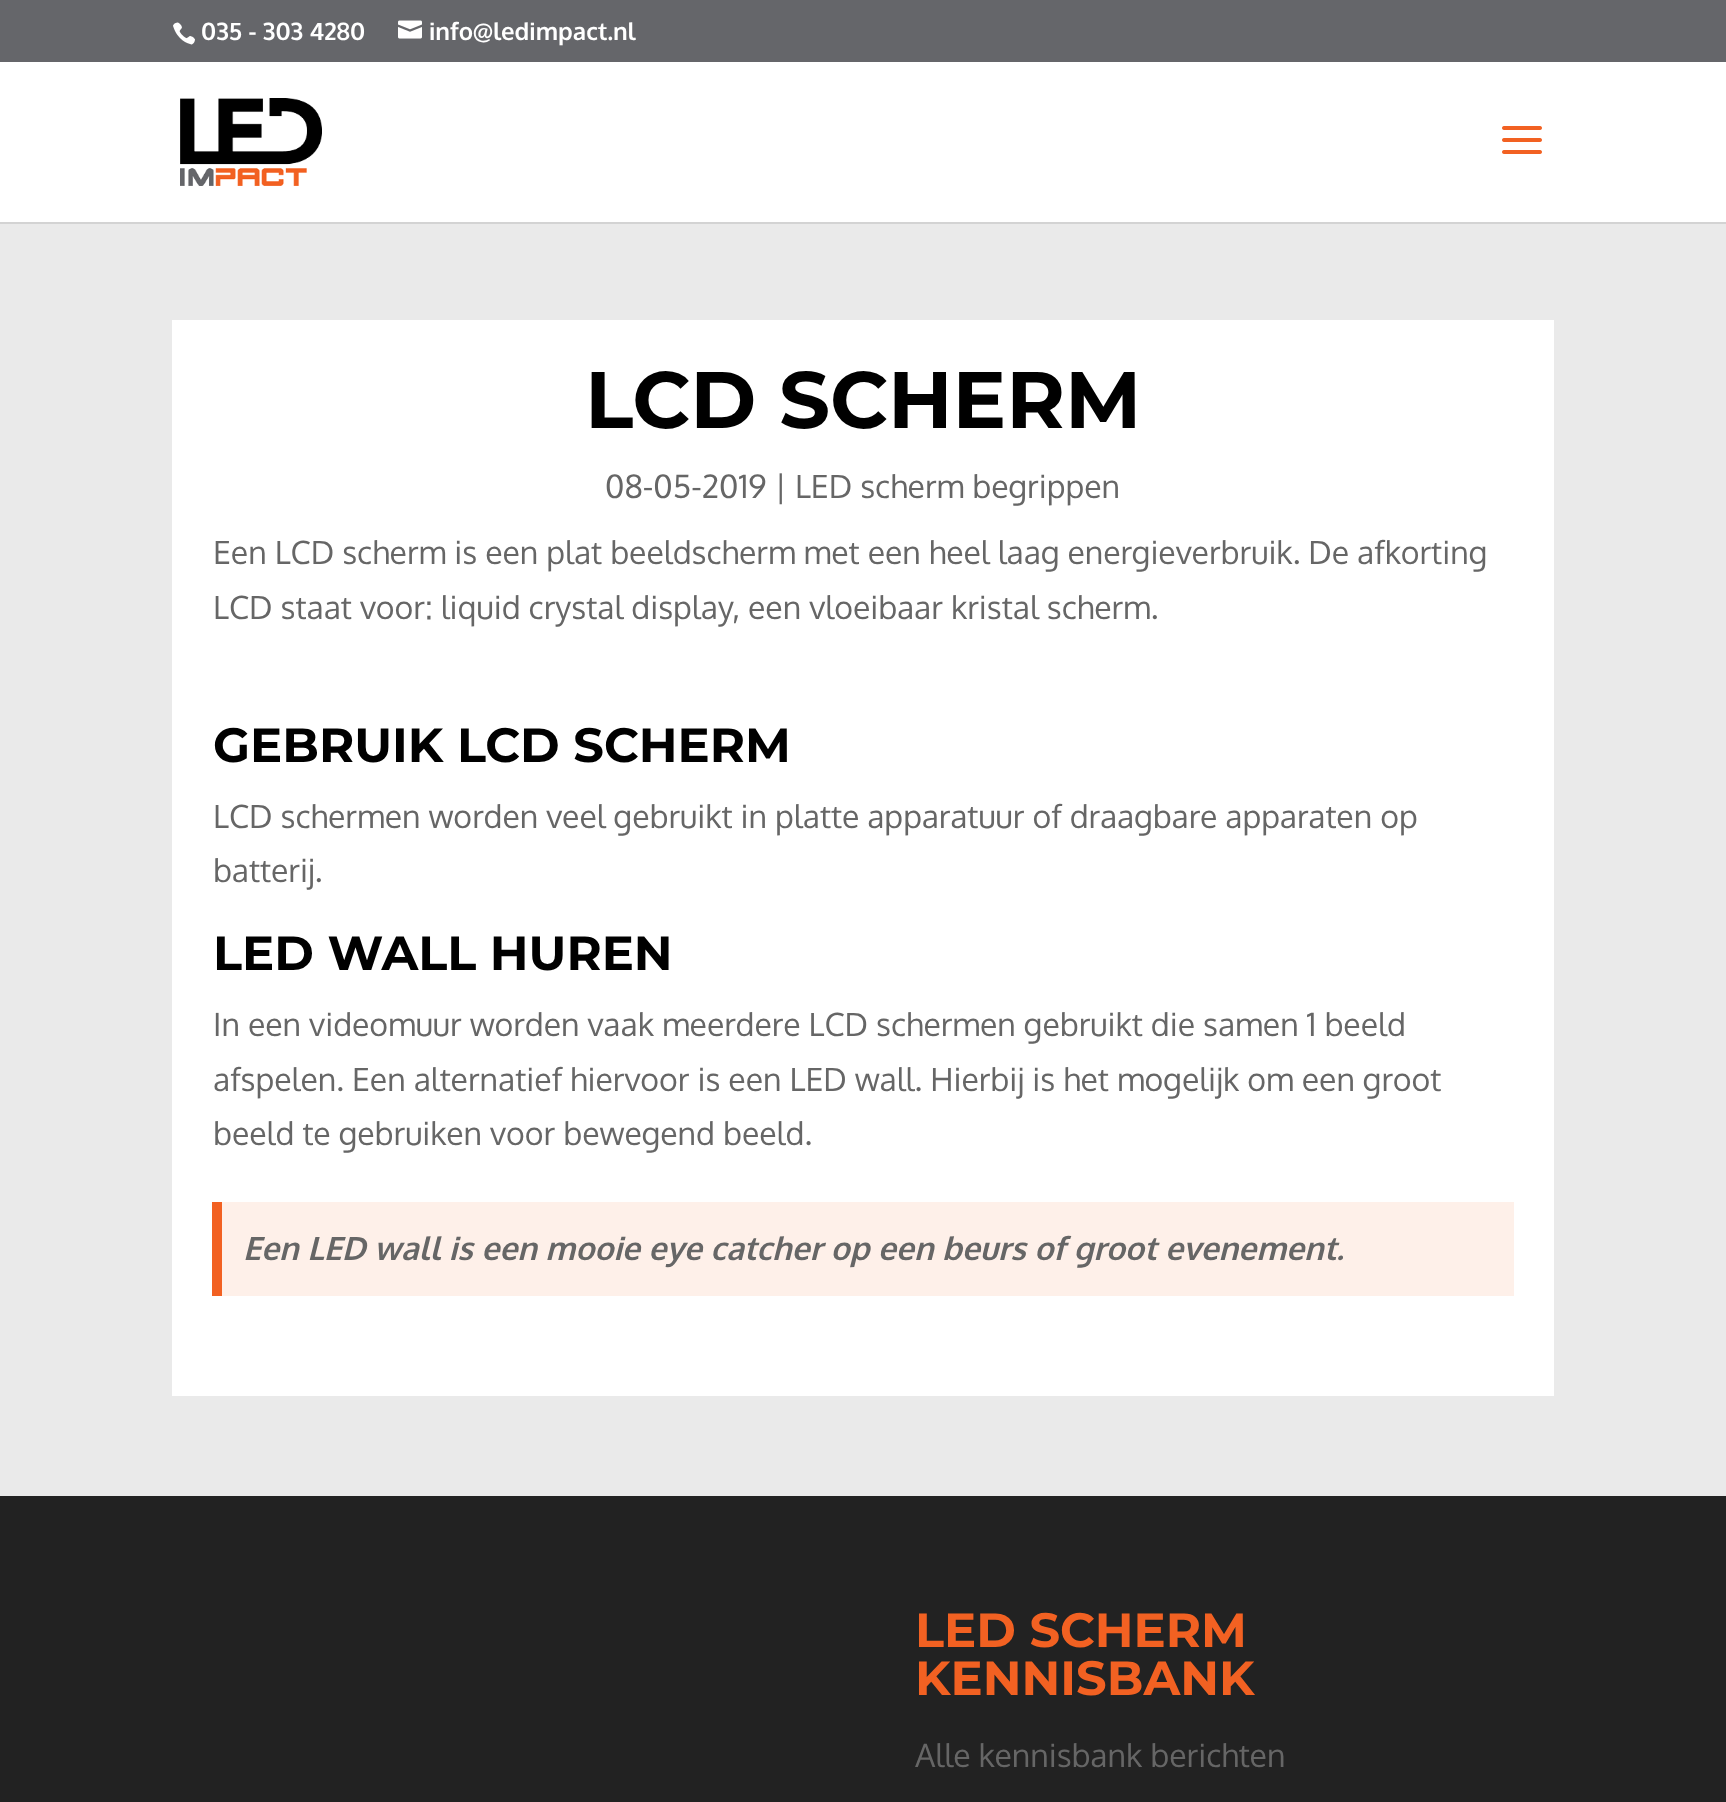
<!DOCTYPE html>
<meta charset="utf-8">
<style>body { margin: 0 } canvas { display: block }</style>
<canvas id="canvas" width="1726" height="1802"></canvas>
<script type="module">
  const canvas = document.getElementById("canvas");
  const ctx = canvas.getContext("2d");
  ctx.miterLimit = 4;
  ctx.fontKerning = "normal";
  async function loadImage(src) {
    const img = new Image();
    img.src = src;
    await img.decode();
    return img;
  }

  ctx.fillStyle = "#222222";
  ctx.fillRect(0, 0, 1726, 1802);
  ctx.fillStyle = "#65666a";
  ctx.fillRect(0, 0, 1726, 62);
  ctx.drawImage(await loadImage("img1.png"), 173, 22, 22, 23);
  ctx.font = "bold 24px Oxygen";
  ctx.fillStyle = "#ffffff";
  ctx.fillText("035 - 303 4280", 201, 40);
  ctx.drawImage(await loadImage("img2.png"), 398, 20, 24, 19);
  ctx.fillText("info@ledimpact.nl", 429, 40);
  ctx.fillStyle = "#d3d3d3";
  ctx.fillRect(0, 222, 1726, 2);
  ctx.fillStyle = "#ffffff";
  ctx.fillRect(0, 62, 1726, 160);
  ctx.drawImage(await loadImage("img3.png"), 180, 98, 142, 88);
  ctx.drawImage(await loadImage("img4.png"), 1502, 126, 40, 28);
  ctx.fillStyle = "#eaeaea";
  ctx.fillRect(0, 224, 1726, 1272);
  ctx.fillStyle = "#ffffff";
  ctx.fillRect(172, 320, 1382, 1076);
  ctx.font = "bold 80px Montserrat";
  ctx.fillStyle = "#000000";
  ctx.fillText("LCD SCHERM", 585, 428);
  ctx.font = "32px Oxygen";
  ctx.fillStyle = "#666666";
  ctx.fillText("08-05-2019 | LED scherm begrippen", 605, 498);
  ctx.fillText("Een LCD scherm is een plat beeldscherm met een heel laag energieverbruik. De afkorting", 213, 564);
  ctx.fillText("LCD staat voor: liquid crystal display, een vloeibaar kristal scherm.", 213, 619);
  ctx.font = "bold 48px Montserrat";
  ctx.fillStyle = "#000000";
  ctx.fillText("GEBRUIK LCD SCHERM", 213, 762);
  ctx.font = "32px Oxygen";
  ctx.fillStyle = "#666666";
  ctx.fillText("LCD schermen worden veel gebruikt in platte apparatuur of draagbare apparaten op", 213, 828);
  ctx.fillText("batterij.", 213, 882);
  ctx.font = "bold 48px Montserrat";
  ctx.fillStyle = "#000000";
  ctx.fillText("LED WALL HUREN", 213, 970);
  ctx.font = "32px Oxygen";
  ctx.fillStyle = "#666666";
  ctx.fillText("In een videomuur worden vaak meerdere LCD schermen gebruikt die samen 1 beeld", 213, 1036);
  ctx.fillText("afspelen. Een alternatief hiervoor is een LED wall. Hierbij is het mogelijk om een groot", 213, 1091);
  ctx.fillText("beeld te gebruiken voor bewegend beeld.", 213, 1145);
  ctx.fillStyle = "#fef0e9";
  ctx.fillRect(222, 1202, 1292, 94);
  ctx.fillStyle = "#f26122";
  ctx.fillRect(212, 1202, 10, 94);
  ctx.font = "italic bold 32px Oxygen";
  ctx.fillStyle = "#666666";
  ctx.fillText("Een LED wall is een mooie eye catcher op een beurs of groot evenement.", 243, 1260);
  ctx.font = "bold 48px Montserrat";
  ctx.fillStyle = "#f26122";
  ctx.fillText("LED SCHERM", 915, 1647);
  ctx.fillText("KENNISBANK", 915, 1695);
  ctx.font = "32px Oxygen";
  ctx.fillStyle = "#666666";
  ctx.fillText("Alle kennisbank berichten", 915, 1767);
</script>
